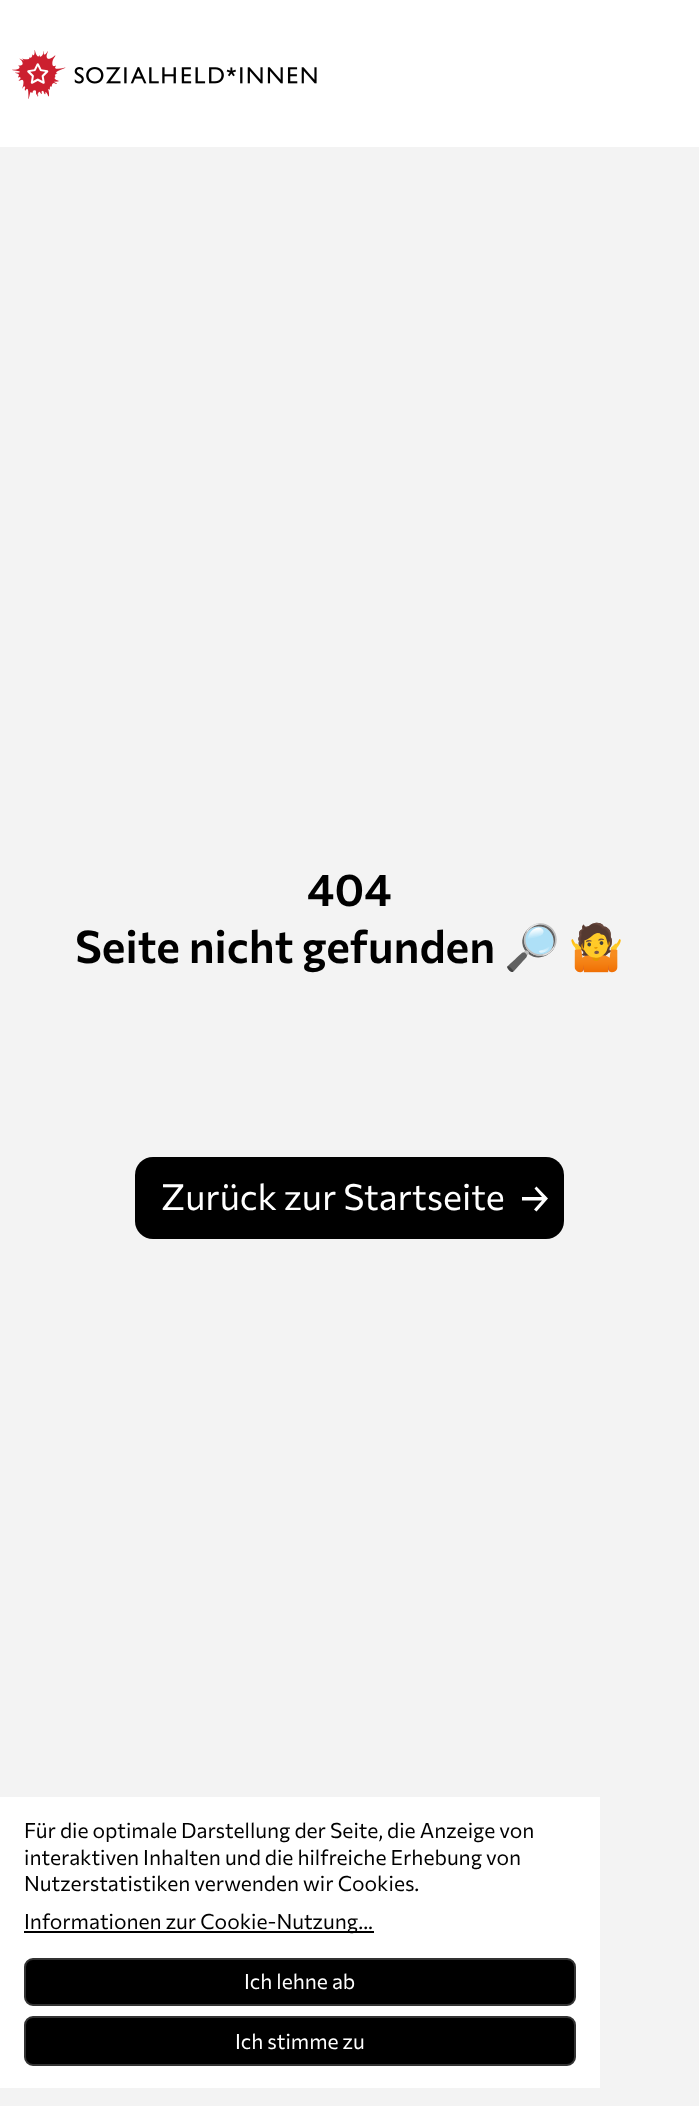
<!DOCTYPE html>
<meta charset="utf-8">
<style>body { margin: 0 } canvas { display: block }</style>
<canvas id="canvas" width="699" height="2106"></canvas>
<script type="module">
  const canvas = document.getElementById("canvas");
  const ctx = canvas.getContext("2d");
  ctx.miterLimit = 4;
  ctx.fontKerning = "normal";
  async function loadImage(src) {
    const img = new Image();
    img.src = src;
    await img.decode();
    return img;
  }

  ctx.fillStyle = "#f3f3f3";
  ctx.fillRect(0, 0, 699, 2106);
  ctx.fillStyle = "#ffffff";
  ctx.fillRect(0, 0, 699, 147);
  ctx.drawImage(await loadImage("img1.png"), 12, 50, 305, 49);
  ctx.font = "600 45px Commissioner";
  ctx.fillStyle = "#000000";
  ctx.fillText("404", 307, 906);
  ctx.fillText("Seite nicht gefunden", 75, 963);
  ctx.font = "bold 45px Noto Color Emoji";
  ctx.fillText("🔎", 504, 963);
  ctx.fillText("🤷", 568, 963);
  ctx.beginPath();
  ctx.roundRect(135, 1157, 429, 82, 18);
  ctx.fill();
  ctx.fillStyle = "#ffffff";
  ctx.beginPath();
  ctx.moveTo(522, 1197);
  ctx.lineTo(542, 1197);
  ctx.lineTo(534.5, 1188.5);
  ctx.lineTo(536.5, 1186.5);
  ctx.lineTo(548, 1198.5);
  ctx.lineTo(536.5, 1211.5);
  ctx.lineTo(534, 1209.5);
  ctx.lineTo(542, 1200.5);
  ctx.lineTo(522, 1200.5);
  ctx.closePath();
  ctx.fill("evenodd");
  ctx.font = "36px Commissioner";
  ctx.fillText("Zurück zur Startseite", 161, 1210);
  ctx.fillRect(0, 1797, 600, 291);
  ctx.font = "21px Commissioner";
  ctx.fillStyle = "#000000";
  ctx.fillText("Für die optimale Darstellung der Seite, die Anzeige von", 24, 1838);
  ctx.fillText("interaktiven Inhalten und die hilfreiche Erhebung von", 24, 1865);
  ctx.fillText("Nutzerstatistiken verwenden wir Cookies.", 24, 1891);
  ctx.fillRect(24, 1931, 350, 2);
  ctx.fillText("Informationen zur Cookie-Nutzung...", 24, 1929);
  ctx.beginPath();
  ctx.roundRect(25, 1959, 550, 46, 8);
  ctx.fill();
  ctx.strokeStyle = "#333333";
  ctx.lineWidth = 2;
  ctx.stroke();
  ctx.fillStyle = "#ffffff";
  ctx.fillText("Ich lehne ab", 244, 1989);
  ctx.fillStyle = "#000000";
  ctx.beginPath();
  ctx.roundRect(25, 2017, 550, 48, 8);
  ctx.fill();
  ctx.stroke();
  ctx.fillStyle = "#ffffff";
  ctx.fillText("Ich stimme zu", 235, 2049);
</script>
